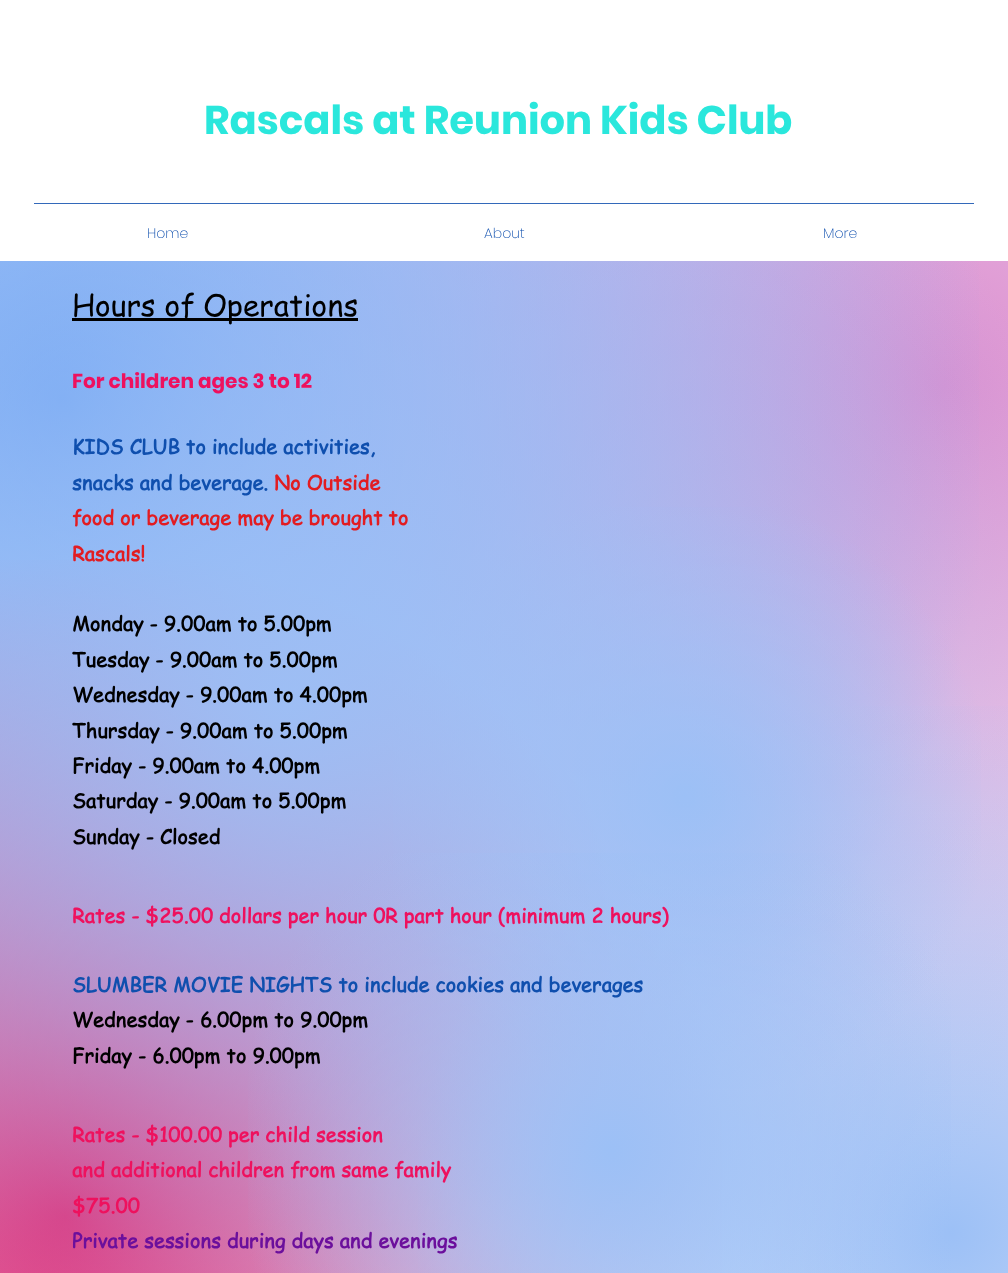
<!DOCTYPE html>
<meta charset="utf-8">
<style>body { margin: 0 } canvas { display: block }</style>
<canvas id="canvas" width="1008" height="1273"></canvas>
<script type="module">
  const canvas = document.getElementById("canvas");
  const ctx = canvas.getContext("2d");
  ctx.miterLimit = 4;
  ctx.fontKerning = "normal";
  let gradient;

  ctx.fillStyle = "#ffffff";
  ctx.fillRect(0, 0, 1008, 1273);
  ctx.font = "bold 40px Poppins";
  ctx.fillStyle = "#2ae7dc";
  ctx.fillText("Rascals at Reunion Kids Club", 204, 134);
  ctx.fillStyle = "#3369ba";
  ctx.fillRect(34, 203, 940, 1);
  ctx.font = "200 14px Poppins";
  ctx.fillStyle = "#0f4fae";
  ctx.fillText("Home", 147, 238);
  ctx.fillText("About", 484, 238);
  ctx.fillText("More", 823, 238);
  gradient = ctx.createRadialGradient(944, 385, 0, 944, 385, 1347);
  gradient.addColorStop(0, "#dc90d0");
  gradient.addColorStop(0.7, "#ffffff");
  ctx.fillStyle = gradient;
  ctx.fillRect(26, 261, 982, 1012);
  gradient = ctx.createRadialGradient(62, 398, 0, 62, 398, 1339);
  gradient.addColorStop(0, "#6aa0f2");
  gradient.addColorStop(0.7, "rgba(106, 160, 242, 0)");
  ctx.fillStyle = gradient;
  ctx.fillRect(0, 261, 979, 1012);
  gradient = ctx.createRadialGradient(66, 1216, 0, 66, 1216, 1342);
  gradient.addColorStop(0, "rgba(238, 17, 94, 0.99)");
  gradient.addColorStop(0.5, "rgba(238, 17, 94, 0)");
  ctx.fillStyle = gradient;
  ctx.fillRect(0, 560, 722, 713);
  gradient = ctx.createRadialGradient(951, 1233, 0, 951, 1233, 1360);
  gradient.addColorStop(0, "#9cc0f6");
  gradient.addColorStop(0.4, "rgba(156, 192, 246, 0)");
  ctx.fillStyle = gradient;
  ctx.fillRect(418, 706, 590, 567);
  gradient = ctx.createRadialGradient(685, 796, 0, 685, 796, 879);
  gradient.addColorStop(0, "#9cc0f6");
  gradient.addColorStop(0.35, "rgba(156, 192, 246, 0)");
  ctx.fillStyle = gradient;
  ctx.fillRect(393, 507, 588, 582);
  gradient = ctx.createRadialGradient(286, 702, 0, 286, 702, 968);
  gradient.addColorStop(0, "rgba(156, 192, 246, 0.94)");
  gradient.addColorStop(0.85, "rgba(156, 192, 246, 0)");
  ctx.fillStyle = gradient;
  ctx.fillRect(0, 261, 1008, 1012);
  gradient = ctx.createRadialGradient(612, 1151, 0, 612, 1151, 1080);
  gradient.addColorStop(0, "#9cc0f6");
  gradient.addColorStop(0.35, "rgba(156, 192, 246, 0)");
  ctx.fillStyle = gradient;
  ctx.fillRect(248, 853, 703, 420);
  ctx.fillStyle = "#000000";
  ctx.fillRect(72, 318, 286, 3);
  ctx.font = "30px 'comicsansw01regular'";
  ctx.fillText("Hours of Operations", 72, 316);
  ctx.font = "bold 20px Poppins";
  ctx.fillStyle = "#ee115e";
  ctx.fillText("For children ages 3 to 12", 72, 388);
  ctx.font = "bold 20px 'comicsansw01regular'";
  ctx.fillStyle = "#0f4fae";
  ctx.fillText("KIDS CLUB to include activities,", 72, 454);
  ctx.fillText("snacks and beverage.", 72, 490);
  ctx.fillStyle = "#e21c21";
  ctx.fillText("No Outside", 274, 490);
  ctx.fillText("food or beverage may be brought to", 72, 525);
  ctx.fillText("Rascals!", 72, 561);
  ctx.fillStyle = "#000000";
  ctx.fillText("Monday - 9.00am to 5.00pm", 72, 631);
  ctx.fillText("Tuesday - 9.00am to 5.00pm", 72, 667);
  ctx.fillText("Wednesday - 9.00am to 4.00pm", 72, 702);
  ctx.fillText("Thursday - 9.00am to 5.00pm", 72, 738);
  ctx.fillText("Friday - 9.00am to 4.00pm", 72, 773);
  ctx.fillText("Saturday - 9.00am to 5.00pm", 72, 808);
  ctx.fillText("Sunday - Closed", 72, 844);
  ctx.fillStyle = "#ee115e";
  ctx.fillText("Rates - $25.00 dollars per hour 0R part hour (minimum 2 hours)", 72, 923);
  ctx.fillStyle = "#0f4fae";
  ctx.fillText("SLUMBER MOVIE NIGHTS to include cookies and beverages", 72, 992);
  ctx.fillStyle = "#000000";
  ctx.fillText("Wednesday - 6.00pm to 9.00pm", 72, 1027);
  ctx.fillText("Friday - 6.00pm to 9.00pm", 72, 1063);
  ctx.fillStyle = "#ee115e";
  ctx.fillText("Rates - $100.00 per child session", 72, 1142);
  ctx.fillText("and additional children from same family", 72, 1177);
  ctx.fillText("$75.00", 72, 1213);
  ctx.fillStyle = "#6b0f9c";
  ctx.fillText("Private sessions during days and evenings", 72, 1248);
</script>
